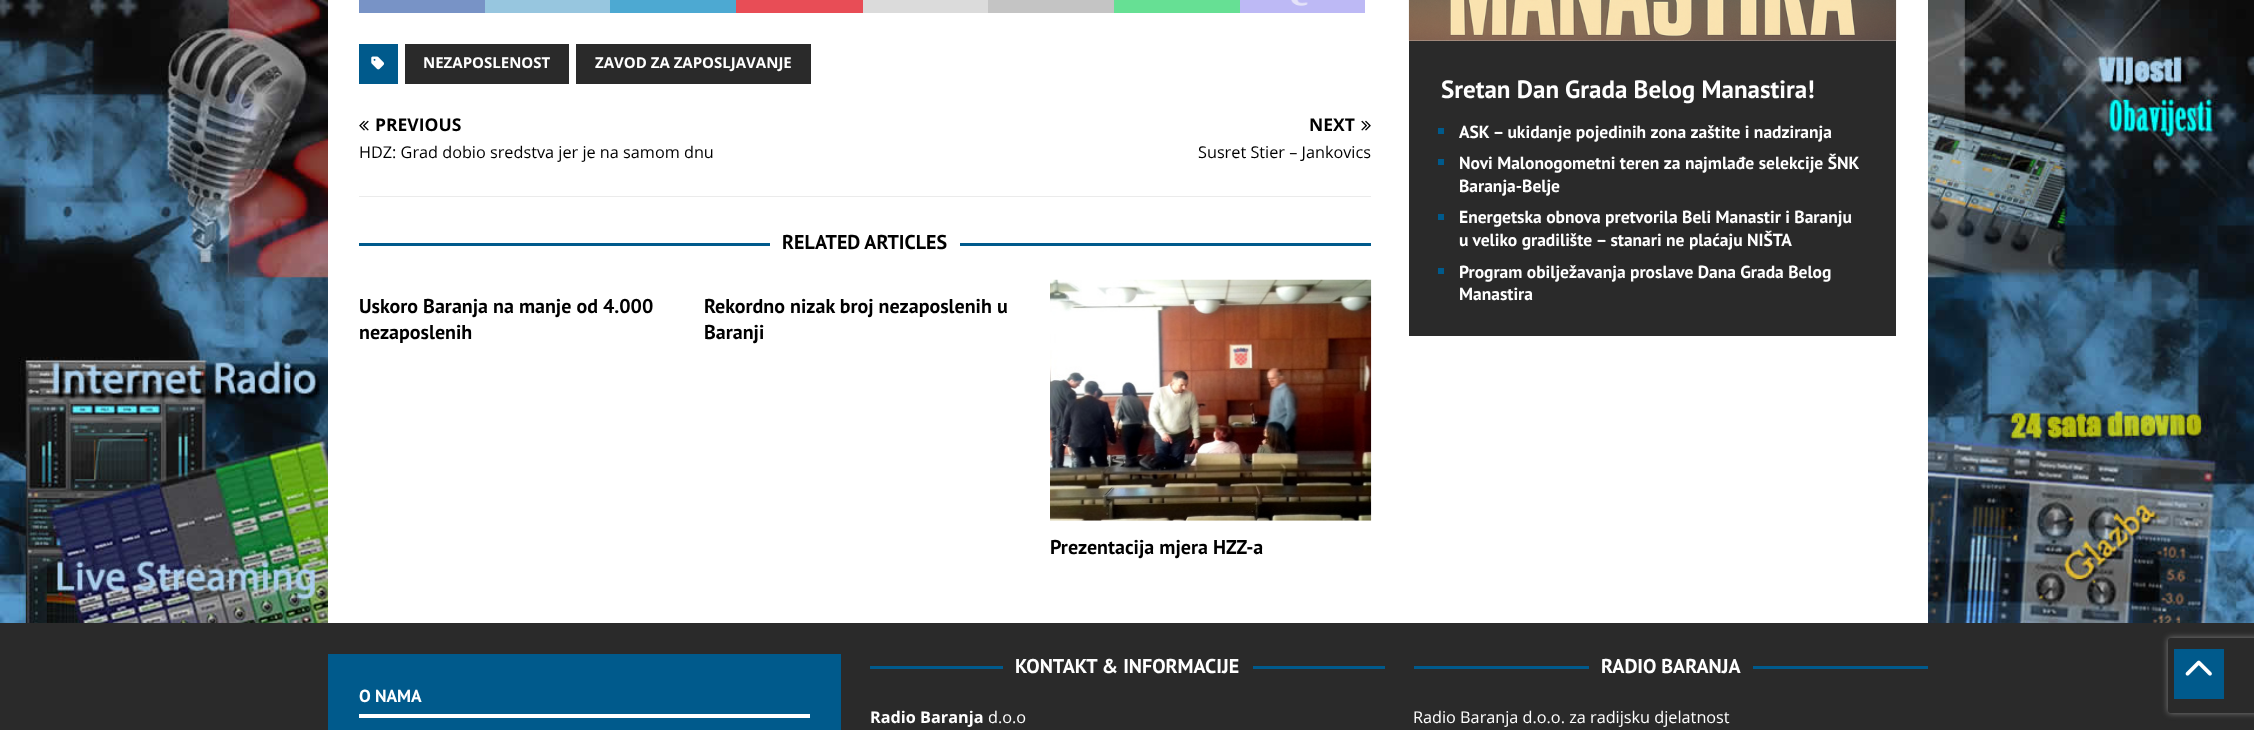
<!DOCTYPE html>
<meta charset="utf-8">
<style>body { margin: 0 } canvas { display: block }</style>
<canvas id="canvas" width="2254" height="730"></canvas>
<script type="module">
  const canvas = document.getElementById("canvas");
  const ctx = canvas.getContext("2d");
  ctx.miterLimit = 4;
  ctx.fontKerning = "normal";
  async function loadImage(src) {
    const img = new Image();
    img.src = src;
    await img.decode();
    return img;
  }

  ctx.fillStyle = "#ffffff";
  ctx.fillRect(0, 0, 2254, 730);
  ctx.drawImage(await loadImage("img1.png"), 0, 0, 2254, 623);
  ctx.fillRect(328, 0, 1600, 623);
  ctx.fillStyle = "#7893c6";
  ctx.fillRect(359, 0, 126, 13);
  ctx.fillStyle = "#97c6df";
  ctx.fillRect(485, 0, 125, 13);
  ctx.fillStyle = "#4da9d2";
  ctx.fillRect(610, 0, 126, 13);
  ctx.fillStyle = "#e84d56";
  ctx.fillRect(736, 0, 127, 13);
  ctx.fillStyle = "#dbdbdb";
  ctx.fillRect(863, 0, 125, 13);
  ctx.fillStyle = "#c4c4c4";
  ctx.fillRect(988, 0, 126, 13);
  ctx.fillStyle = "#66e094";
  ctx.fillRect(1114, 0, 126, 13);
  ctx.fillStyle = "#bdb9f5";
  ctx.fillRect(1240, 0, 125, 13);
  ctx.drawImage(await loadImage("img2.png"), 1291, 0, 17, 6);
  ctx.fillStyle = "#005a8c";
  ctx.fillRect(359, 44, 39, 40);
  ctx.drawImage(await loadImage("img3.png"), 371, 56, 13, 14);
  ctx.fillStyle = "#2a2a2a";
  ctx.fillRect(405, 44, 164, 40);
  ctx.font = "bold 15px Open Sans";
  ctx.fillStyle = "#ffffff";
  ctx.fillText("NEZAPOSLENOST", 423, 68);
  ctx.fillStyle = "#2a2a2a";
  ctx.fillRect(576, 44, 235, 40);
  ctx.fillStyle = "#ffffff";
  ctx.fillText("ZAVOD ZA ZAPOSLJAVANJE", 595, 68);
  ctx.fillStyle = "#ebebeb";
  ctx.fillRect(359, 196, 1012, 1);
  ctx.drawImage(await loadImage("img4.png"), 359, 120, 10, 11);
  ctx.font = "bold 17.5px Open Sans";
  ctx.fillStyle = "#000000";
  ctx.fillText("PREVIOUS", 375, 131);
  ctx.font = "16.25px Open Sans";
  ctx.fillText("HDZ: Grad dobio sredstva jer je na samom dnu", 359, 158);
  ctx.font = "bold 17.5px Open Sans";
  ctx.fillText("NEXT", 1309, 131);
  ctx.drawImage(await loadImage("img5.png"), 1361, 120, 10, 11);
  ctx.font = "16.25px Open Sans";
  ctx.fillText("Susret Stier – Jankovics", 1198, 158);
  ctx.fillStyle = "#005a8c";
  ctx.fillRect(359, 243, 1012, 3);
  ctx.fillStyle = "#ffffff";
  ctx.fillRect(770, 243, 190, 3);
  ctx.font = "bold 20px PT Sans";
  ctx.fillStyle = "#000000";
  ctx.fillText("RELATED ARTICLES", 782, 249);
  ctx.fillText("Uskoro Baranja na manje od 4.000", 359, 313);
  ctx.fillText("nezaposlenih", 359, 339);
  ctx.fillText("Rekordno nizak broj nezaposlenih u", 704, 313);
  ctx.fillText("Baranji", 704, 339);
  ctx.drawImage(await loadImage("img6.png"), 1050, 279, 322, 242);
  ctx.fillText("Prezentacija mjera HZZ-a", 1050, 554);
  ctx.drawImage(await loadImage("img7.png"), 1408, 0, 489, 41);
  ctx.fillStyle = "#2a2a2a";
  ctx.fillRect(1409, 41, 487, 295);
  ctx.font = "bold 25px PT Sans";
  ctx.fillStyle = "#ffffff";
  ctx.fillText("Sretan Dan Grada Belog Manastira!", 1441, 98);
  ctx.fillStyle = "#005a8c";
  ctx.fillRect(1438, 128, 6, 6);
  ctx.font = "bold 17.5px PT Sans";
  ctx.fillStyle = "#ffffff";
  ctx.fillText("ASK – ukidanje pojedinih zona zaštite i nadziranja", 1459, 138);
  ctx.fillStyle = "#005a8c";
  ctx.fillRect(1438, 159, 6, 6);
  ctx.fillStyle = "#ffffff";
  ctx.fillText("Novi Malonogometni teren za najmlađe selekcije ŠNK", 1459, 169);
  ctx.fillText("Baranja-Belje", 1459, 192);
  ctx.fillStyle = "#005a8c";
  ctx.fillRect(1438, 214, 6, 6);
  ctx.fillStyle = "#ffffff";
  ctx.fillText("Energetska obnova pretvorila Beli Manastir i Baranju", 1459, 223);
  ctx.fillText("u veliko gradilište – stanari ne plaćaju NIŠTA", 1459, 246);
  ctx.fillStyle = "#005a8c";
  ctx.fillRect(1438, 268, 6, 6);
  ctx.fillStyle = "#ffffff";
  ctx.fillText("Program obilježavanja proslave Dana Grada Belog", 1459, 278);
  ctx.fillText("Manastira", 1459, 300);
  ctx.fillStyle = "#2a2a2a";
  ctx.fillRect(0, 623, 2254, 107);
  ctx.save();
  ctx.beginPath();
  ctx.moveTo(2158, 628);
  ctx.lineTo(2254, 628);
  ctx.lineTo(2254, 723);
  ctx.lineTo(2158, 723);
  ctx.closePath();
  ctx.moveTo(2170.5, 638);
  ctx.lineTo(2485.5, 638);
  ctx.bezierCurveTo(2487, 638, 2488, 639, 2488, 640.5);
  ctx.lineTo(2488, 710.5);
  ctx.bezierCurveTo(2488, 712, 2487, 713, 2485.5, 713);
  ctx.lineTo(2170.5, 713);
  ctx.bezierCurveTo(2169, 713, 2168, 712, 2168, 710.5);
  ctx.lineTo(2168, 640.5);
  ctx.bezierCurveTo(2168, 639, 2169, 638, 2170.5, 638);
  ctx.closePath();
  ctx.clip("evenodd");
  ctx.fillStyle = "#808080";
  ctx.filter = "blur(3px)";
  ctx.beginPath();
  ctx.roundRect(2168, 638, 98, 75, 2.5);
  ctx.fill();
  ctx.filter = "none";
  ctx.restore();
  ctx.fillStyle = "#005a8c";
  ctx.fillRect(2174, 649, 50, 50);
  ctx.drawImage(await loadImage("img8.png"), 2185, 660, 27, 16);
  ctx.fillRect(328, 654, 513, 76);
  ctx.fillStyle = "#ffffff";
  ctx.fillRect(359, 714, 451, 4);
  ctx.fillText("O NAMA", 359, 702);
  ctx.fillStyle = "#005a8c";
  ctx.fillRect(870, 666, 515, 3);
  ctx.fillStyle = "#2a2a2a";
  ctx.fillRect(1003, 666, 250, 3);
  ctx.font = "bold 20px PT Sans";
  ctx.fillStyle = "#ffffff";
  ctx.fillText("KONTAKT & INFORMACIJE", 1015, 673);
  ctx.font = "bold 16.25px Open Sans";
  ctx.fillText("Radio Baranja", 870, 723);
  ctx.font = "16.25px Open Sans";
  ctx.fillText("d.o.o", 988, 723);
  ctx.fillStyle = "#005a8c";
  ctx.fillRect(1414, 666, 514, 3);
  ctx.fillStyle = "#2a2a2a";
  ctx.fillRect(1589, 666, 164, 3);
  ctx.font = "bold 20px PT Sans";
  ctx.fillStyle = "#ffffff";
  ctx.fillText("RADIO BARANJA", 1601, 673);
  ctx.font = "16.25px Open Sans";
  ctx.fillText("Radio Baranja d.o.o. za radijsku djelatnost", 1413, 723);
</script>
